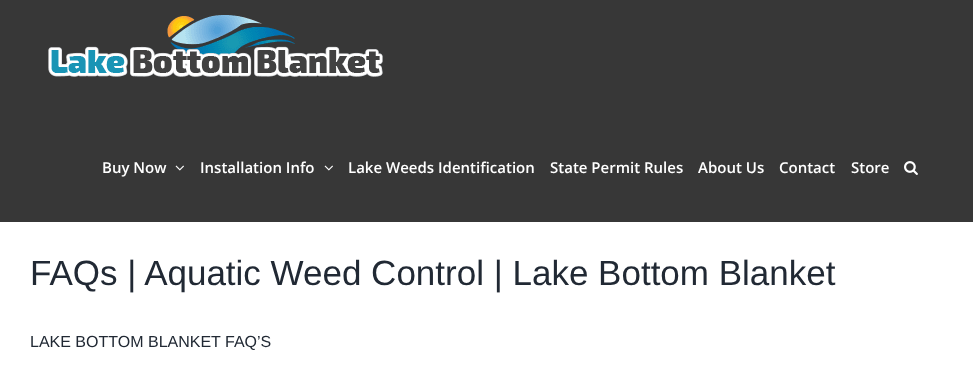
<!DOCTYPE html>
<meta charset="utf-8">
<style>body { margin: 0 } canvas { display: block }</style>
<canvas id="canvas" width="973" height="369"></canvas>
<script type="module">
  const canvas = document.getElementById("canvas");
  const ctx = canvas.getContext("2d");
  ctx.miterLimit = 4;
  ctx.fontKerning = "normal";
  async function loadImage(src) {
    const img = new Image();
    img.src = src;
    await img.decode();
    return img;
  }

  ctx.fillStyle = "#ffffff";
  ctx.fillRect(0, 0, 973, 369);
  ctx.fillStyle = "#373737";
  ctx.fillRect(0, 0, 973, 222);
  ctx.drawImage(await loadImage("img1.png"), 48, 15, 335, 62);
  ctx.font = "600 15px Open Sans";
  ctx.fillStyle = "#ffffff";
  ctx.fillText("Buy Now", 102, 173);
  ctx.drawImage(await loadImage("img2.png"), 175, 165, 9, 6);
  ctx.fillText("Installation Info", 200, 173);
  ctx.drawImage(await loadImage("img2.png"), 324, 165, 9, 6);
  ctx.fillText("Lake Weeds Identification", 348, 173);
  ctx.fillText("State Permit Rules", 550, 173);
  ctx.fillText("About Us", 698, 173);
  ctx.fillText("Contact", 779, 173);
  ctx.fillText("Store", 851, 173);
  ctx.drawImage(await loadImage("img3.png"), 904, 161, 14, 14);
  ctx.font = "35px Liberation Sans";
  ctx.fillStyle = "#212934";
  ctx.fillText("FAQs | Aquatic Weed Control | Lake Bottom Blanket", 30, 285);
  ctx.font = "16px Liberation Sans";
  ctx.fillText("LAKE BOTTOM BLANKET FAQ’S", 30, 347);
</script>
